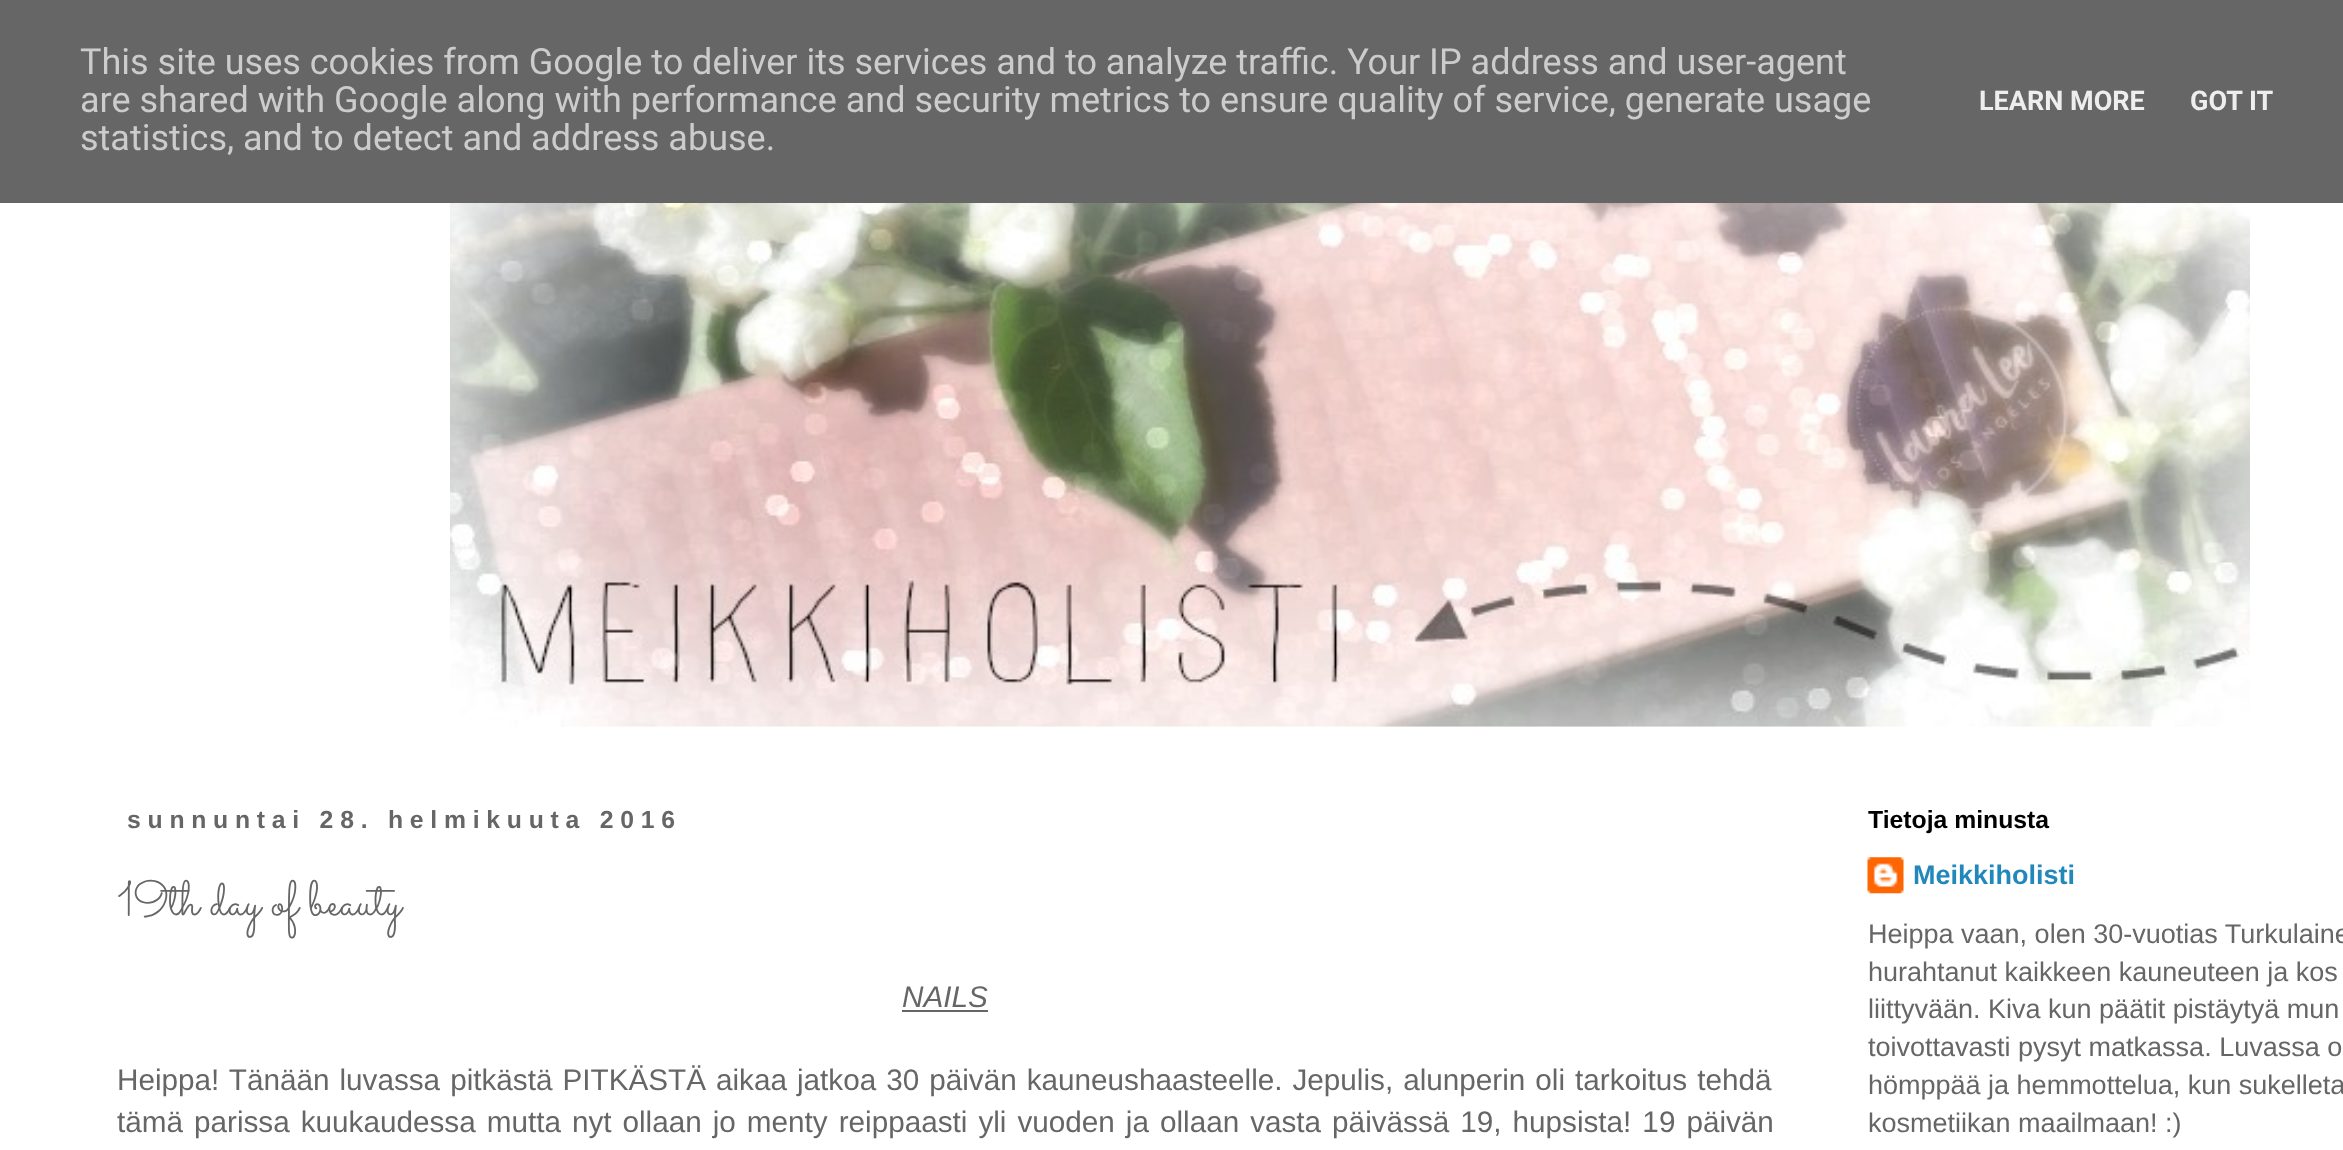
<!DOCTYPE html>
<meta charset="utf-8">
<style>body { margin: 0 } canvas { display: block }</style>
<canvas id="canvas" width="2343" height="1150"></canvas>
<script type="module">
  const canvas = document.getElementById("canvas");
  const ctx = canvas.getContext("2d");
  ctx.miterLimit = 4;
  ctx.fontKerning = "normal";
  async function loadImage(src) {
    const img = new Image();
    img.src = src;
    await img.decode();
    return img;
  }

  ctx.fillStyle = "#ffffff";
  ctx.fillRect(0, 0, 2343, 1150);
  ctx.fillStyle = "#666666";
  ctx.fillRect(0, 0, 2343, 203);
  ctx.font = "36px Roboto";
  ctx.fillStyle = "#cccccc";
  ctx.fillText("This site uses cookies from Google to deliver its services and to analyze traffic. Your IP address and user-agent", 80, 74);
  ctx.fillText("are shared with Google along with performance and security metrics to ensure quality of service, generate usage", 80, 112);
  ctx.fillText("statistics, and to detect and address abuse.", 80, 150);
  ctx.font = "bold 27px Roboto";
  ctx.fillStyle = "#eeeeee";
  ctx.fillText("LEARN MORE", 1979, 110);
  ctx.fillText("GOT IT", 2190, 110);
  ctx.drawImage(await loadImage("img1.png"), 450, 203, 1800, 524);
  ctx.letterSpacing = "6.75px";
  ctx.font = "bold 24.75px Liberation Sans";
  ctx.fillStyle = "#666666";
  ctx.fillText("sunnuntai 28. helmikuuta 2016", 127, 828);
  ctx.letterSpacing = "0px";
  ctx.font = "49.5px Sacramento";
  ctx.fillText("19th day of beauty", 117, 915);
  ctx.font = "italic 29.7px Liberation Sans";
  ctx.fillText("NAILS", 902, 1007);
  ctx.fillRect(902, 1010, 86, 2);
  ctx.wordSpacing = "1.75px";
  ctx.font = "29.7px Liberation Sans";
  ctx.fillText("Heippa! Tänään luvassa pitkästä PITKÄSTÄ aikaa jatkoa 30 päivän kauneushaasteelle. Jepulis, alunperin oli tarkoitus tehdä", 117, 1090);
  ctx.wordSpacing = "2.75px";
  ctx.fillText("tämä parissa kuukaudessa mutta nyt ollaan jo menty reippaasti yli vuoden ja ollaan vasta päivässä 19, hupsista! 19 päivän", 117, 1132);
  ctx.wordSpacing = "0px";
  ctx.font = "bold 24.75px Liberation Sans";
  ctx.fillStyle = "#000000";
  ctx.fillText("Tietoja minusta", 1868, 828);
  ctx.drawImage(await loadImage("img2.png"), 1867, 857, 37, 37);
  ctx.font = "bold 27px Liberation Sans";
  ctx.fillStyle = "#2288bb";
  ctx.fillText("Meikkiholisti", 1913, 884);
  ctx.font = "27px Liberation Sans";
  ctx.fillStyle = "#666666";
  ctx.fillText("Heippa vaan, olen 30-vuotias Turkulaine", 1868, 943);
  ctx.fillText("hurahtanut kaikkeen kauneuteen ja kos", 1868, 981);
  ctx.fillText("liittyvään. Kiva kun päätit pistäytyä mun", 1868, 1018);
  ctx.fillText("toivottavasti pysyt matkassa. Luvassa o", 1868, 1056);
  ctx.fillText("hömppää ja hemmottelua, kun sukelleta", 1868, 1094);
  ctx.fillText("kosmetiikan maailmaan! :)", 1868, 1132);
</script>
